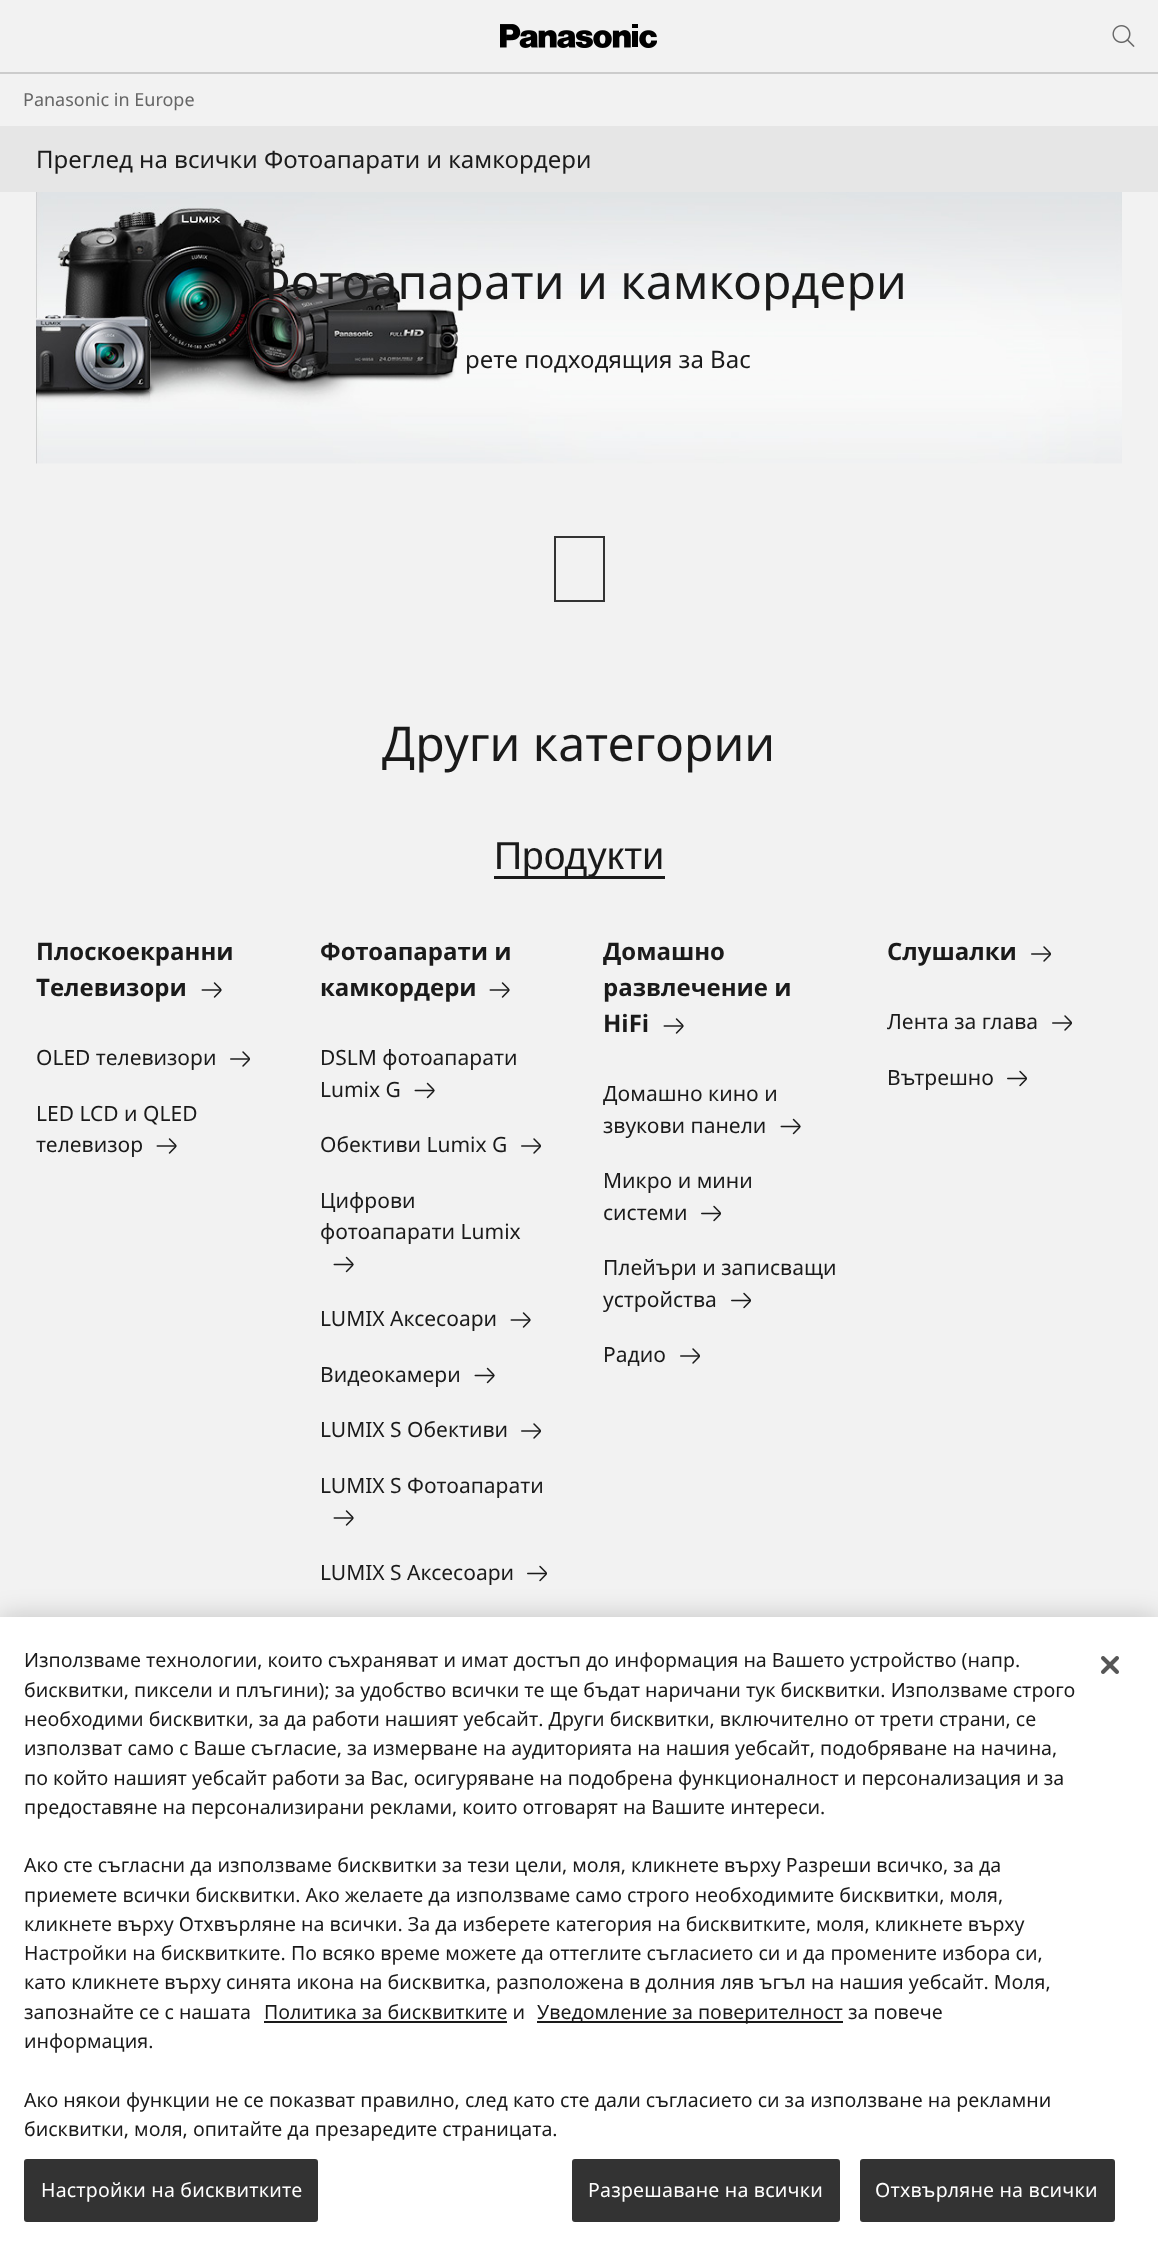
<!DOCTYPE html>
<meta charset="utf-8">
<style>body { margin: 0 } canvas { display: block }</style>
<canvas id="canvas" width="1158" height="2253"></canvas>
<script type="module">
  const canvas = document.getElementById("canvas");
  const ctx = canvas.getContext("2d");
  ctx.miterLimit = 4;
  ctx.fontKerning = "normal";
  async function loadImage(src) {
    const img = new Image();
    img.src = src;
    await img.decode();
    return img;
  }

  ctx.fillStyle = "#f2f2f2";
  ctx.fillRect(0, 0, 1158, 2253);
  ctx.drawImage(await loadImage("img1.png"), 500, 24, 157, 24);
  ctx.drawImage(await loadImage("img2.png"), 1112, 25, 23, 22);
  ctx.fillStyle = "#cccccc";
  ctx.fillRect(0, 72, 1158, 2);
  ctx.font = "18px Noto Sans";
  ctx.fillStyle = "#666666";
  ctx.fillText("Panasonic in Europe", 23, 106);
  ctx.fillStyle = "#e6e6e6";
  ctx.fillRect(0, 126, 1158, 66);
  ctx.font = "24px Noto Sans";
  ctx.fillStyle = "#1a1a1a";
  ctx.fillText("Преглед на всички Фотоапарати и камкордери", 36, 168);
  ctx.drawImage(await loadImage("img3.png"), 36, 192, 1086, 272);
  ctx.font = "48px Noto Sans";
  ctx.fillText("Фотоапарати и камкордери", 252, 299);
  ctx.font = "24px Noto Sans";
  ctx.fillText("рете подходящия за Вас", 465, 368);
  ctx.strokeStyle = "#333333";
  ctx.lineWidth = 2;
  ctx.strokeRect(555, 537, 49, 64);
  ctx.font = "48px Noto Sans";
  ctx.fillText("Други категории", 382, 761);
  ctx.fillRect(494, 876, 171, 3);
  ctx.font = "39px Liberation Sans";
  ctx.fillText("Продукти", 494, 869);
  ctx.font = "bold 24px Noto Sans";
  ctx.fillText("Плоскоекранни", 36, 960);
  ctx.fillText("Tелевизори", 36, 996);
  ctx.drawImage(await loadImage("img4.png"), 201, 982, 21, 16);
  ctx.font = "21px Noto Sans";
  ctx.fillText("OLED телевизори", 36, 1065);
  ctx.drawImage(await loadImage("img5.png"), 230, 1051, 20, 16);
  ctx.fillText("LED LCD и QLED", 36, 1121);
  ctx.fillText("телевизор", 36, 1152);
  ctx.drawImage(await loadImage("img4.png"), 156, 1138, 21, 16);
  ctx.font = "bold 24px Noto Sans";
  ctx.fillText("Фотоапарати и", 320, 960);
  ctx.fillText("камкордери", 320, 996);
  ctx.drawImage(await loadImage("img4.png"), 489, 982, 21, 16);
  ctx.font = "21px Noto Sans";
  ctx.fillText("DSLM фотоапарати", 320, 1065);
  ctx.fillText("Lumix G", 320, 1097);
  ctx.drawImage(await loadImage("img6.png"), 414, 1082, 21, 17);
  ctx.fillText("Обективи Lumix G", 320, 1152);
  ctx.drawImage(await loadImage("img5.png"), 521, 1138, 20, 16);
  ctx.fillText("Цифрови", 320, 1208);
  ctx.fillText("фотоапарати Lumix", 320, 1239);
  ctx.drawImage(await loadImage("img6.png"), 333, 1256, 21, 17);
  ctx.fillText("LUMIX Аксесоари", 320, 1326);
  ctx.drawImage(await loadImage("img4.png"), 510, 1312, 21, 16);
  ctx.fillText("Видеокамери", 320, 1382);
  ctx.drawImage(await loadImage("img6.png"), 474, 1367, 21, 17);
  ctx.fillText("LUMIX S Обективи", 320, 1437);
  ctx.drawImage(await loadImage("img5.png"), 521, 1423, 20, 16);
  ctx.fillText("LUMIX S Фотоапарати", 320, 1493);
  ctx.drawImage(await loadImage("img4.png"), 333, 1510, 21, 16);
  ctx.fillText("LUMIX S Аксесоари", 320, 1580);
  ctx.drawImage(await loadImage("img7.png"), 527, 1565, 20, 17);
  ctx.font = "bold 24px Noto Sans";
  ctx.fillText("Домашно", 603, 960);
  ctx.fillText("развлечение и", 603, 996);
  ctx.fillText("HiFi", 603, 1032);
  ctx.drawImage(await loadImage("img4.png"), 663, 1018, 21, 16);
  ctx.font = "21px Noto Sans";
  ctx.fillText("Домашно кино и", 603, 1101);
  ctx.fillText("звукови панели", 603, 1133);
  ctx.drawImage(await loadImage("img6.png"), 780, 1118, 21, 17);
  ctx.fillText("Микро и мини", 603, 1188);
  ctx.fillText("системи", 603, 1220);
  ctx.drawImage(await loadImage("img7.png"), 701, 1205, 20, 17);
  ctx.fillText("Плейъри и записващи", 603, 1275);
  ctx.fillText("устройства", 603, 1307);
  ctx.drawImage(await loadImage("img7.png"), 731, 1292, 20, 17);
  ctx.fillText("Радио", 603, 1362);
  ctx.drawImage(await loadImage("img5.png"), 680, 1348, 20, 16);
  ctx.font = "bold 24px Noto Sans";
  ctx.fillText("Слушалки", 887, 960);
  ctx.drawImage(await loadImage("img5.png"), 1031, 946, 20, 16);
  ctx.font = "21px Noto Sans";
  ctx.fillText("Лента за глава", 887, 1029);
  ctx.drawImage(await loadImage("img5.png"), 1052, 1015, 20, 16);
  ctx.fillText("Вътрешно", 887, 1085);
  ctx.drawImage(await loadImage("img7.png"), 1007, 1070, 20, 17);
  ctx.fillStyle = "rgba(0, 0, 0, 0.2)";
  ctx.filter = "blur(13.5px)";
  ctx.beginPath();
  ctx.rect(0, 1617, 1158, 636);
  ctx.fill();
  ctx.filter = "none";
  ctx.fillStyle = "#ffffff";
  ctx.fillRect(0, 1617, 1158, 636);
  ctx.font = "19.5px Noto Sans";
  ctx.fillStyle = "#1a1a1a";
  ctx.fillText("Използваме технологии, които съхраняват и имат достъп до информация на Вашето устройство (напр.", 24, 1667);
  ctx.fillText("бисквитки, пиксели и плъгини); за удобство всички те ще бъдат наричани тук бисквитки. Използваме строго", 24, 1697);
  ctx.fillText("необходими бисквитки, за да работи нашият уебсайт. Други бисквитки, включително от трети страни, се", 24, 1726);
  ctx.fillText("използват само с Ваше съгласие, за измерване на аудиторията на нашия уебсайт, подобряване на начина,", 24, 1755);
  ctx.fillText("по който нашият уебсайт работи за Вас, осигуряване на подобрена функционалност и персонализация и за", 24, 1785);
  ctx.fillText("предоставяне на персонализирани реклами, които отговарят на Вашите интереси.", 24, 1814);
  ctx.fillText("Ако сте съгласни да използваме бисквитки за тези цели, моля, кликнете върху Разреши всичко, за да", 24, 1872);
  ctx.fillText("приемете всички бисквитки. Ако желаете да използваме само строго необходимите бисквитки, моля,", 24, 1902);
  ctx.fillText("кликнете върху Отхвърляне на всички. За да изберете категория на бисквитките, моля, кликнете върху", 24, 1931);
  ctx.fillText("Настройки на бисквитките. По всяко време можете да оттеглите съгласието си и да промените избора си,", 24, 1960);
  ctx.fillText("като кликнете върху синята икона на бисквитка, разположена в долния ляв ъгъл на нашия уебсайт. Моля,", 24, 1989);
  ctx.fillText("запознайте се с нашата", 24, 2019);
  ctx.fillText("Политика за бисквитките и", 264, 2019);
  ctx.fillRect(264, 2021, 243, 2);
  ctx.fillRect(537, 2021, 306, 2);
  ctx.fillText("Уведомление за поверителност за повече", 537, 2019);
  ctx.fillText("информация.", 24, 2048);
  ctx.fillText("Ако някои функции не се показват правилно, след като сте дали съгласието си за използване на рекламни", 24, 2107);
  ctx.fillText("бисквитки, моля, опитайте да презаредите страницата.", 24, 2136);
  ctx.fillStyle = "#333333";
  ctx.beginPath();
  ctx.roundRect(25, 2160, 292, 61, 2);
  ctx.fill();
  ctx.stroke();
  ctx.letterSpacing = "0.2px";
  ctx.fillStyle = "#ffffff";
  ctx.fillText("Настройки на бисквитките", 41, 2197);
  ctx.fillStyle = "#333333";
  ctx.beginPath();
  ctx.roundRect(573, 2160, 266, 61, 2);
  ctx.fill();
  ctx.stroke();
  ctx.fillStyle = "#ffffff";
  ctx.fillText("Разрешаване на всички", 588, 2197);
  ctx.fillStyle = "#333333";
  ctx.beginPath();
  ctx.roundRect(861, 2160, 253, 61, 2);
  ctx.fill();
  ctx.stroke();
  ctx.fillStyle = "#ffffff";
  ctx.fillText("Отхвърляне на всички", 875, 2197);
  ctx.drawImage(await loadImage("img8.png"), 1101, 1656, 18, 18);
</script>
